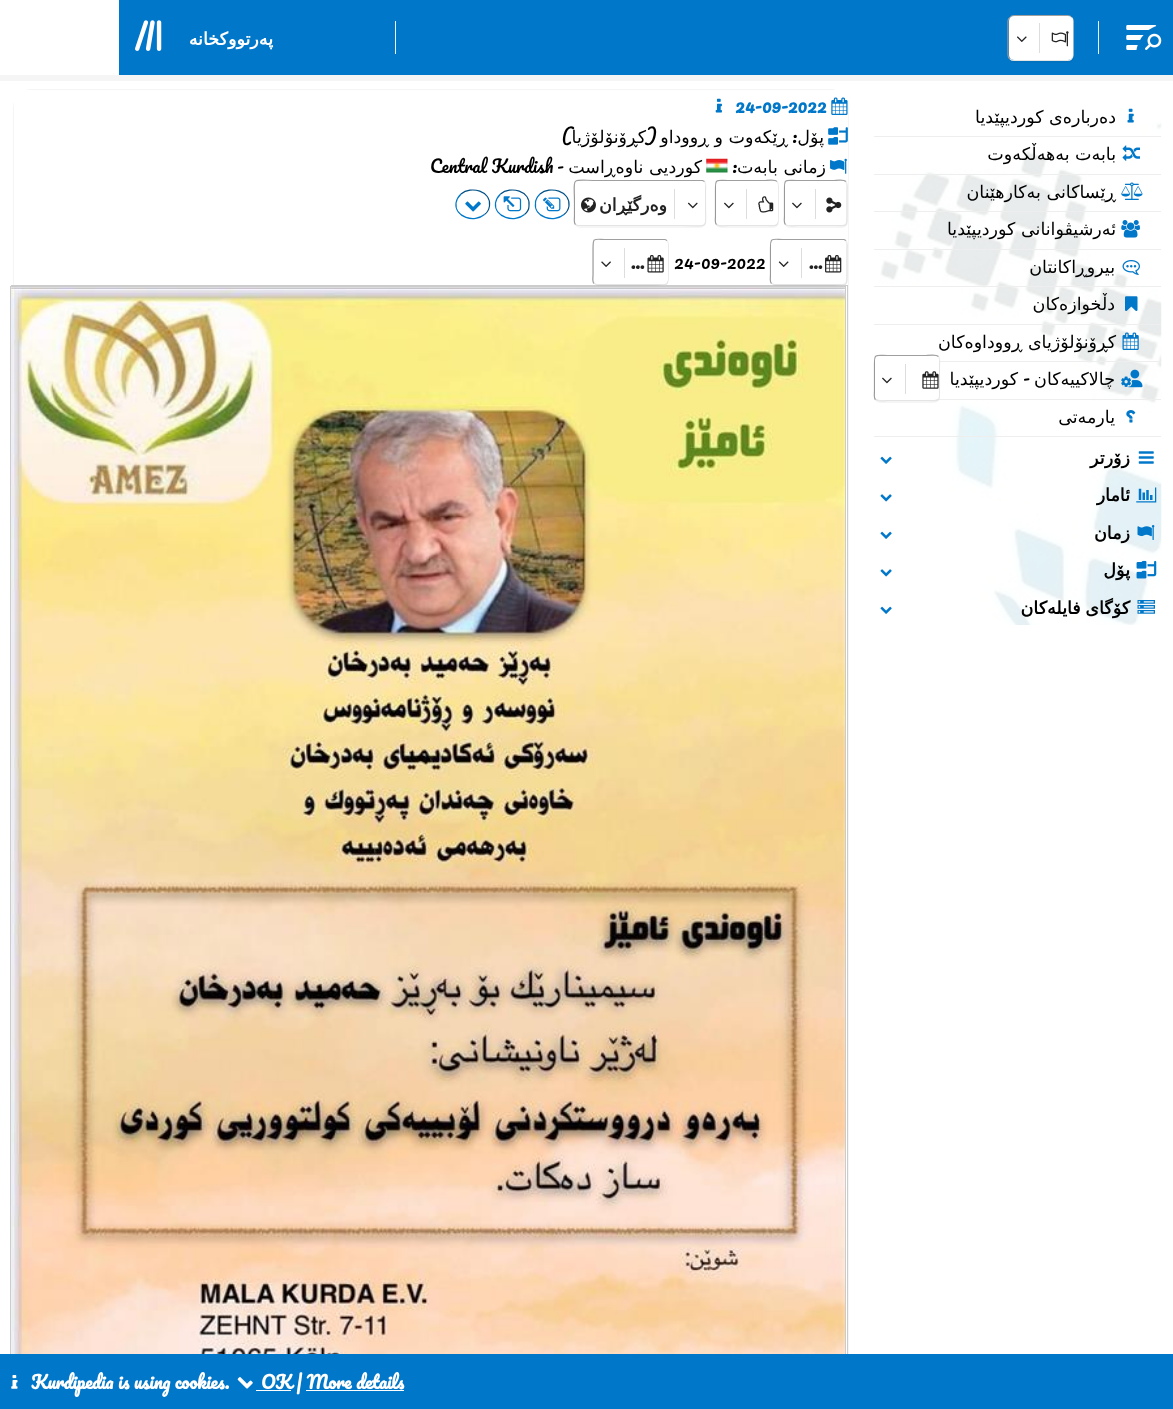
<!DOCTYPE html>
<meta charset="utf-8">
<style>body { margin: 0 } canvas { display: block }</style>
<canvas id="canvas" width="1173" height="1409"></canvas>
<script type="module">
  const canvas = document.getElementById("canvas");
  const ctx = canvas.getContext("2d");
  ctx.miterLimit = 4;
  ctx.fontKerning = "normal";
  async function loadImage(src) {
    const img = new Image();
    img.src = src;
    await img.decode();
    return img;
  }

  ctx.fillStyle = "#ffffff";
  ctx.fillRect(0, 0, 1173, 1409);
  ctx.fillStyle = "#0077c8";
  ctx.fillRect(119, 0, 1054, 75);
  ctx.drawImage(await loadImage("img2.png"), 1126, 25, 31, 25);
  ctx.beginPath();
  ctx.moveTo(1171, 24);
  ctx.lineTo(1167.5, 24);
  ctx.bezierCurveTo(1150, 24, 1136, 38, 1136, 55.5);
  ctx.lineTo(1136, 59);
  ctx.lineTo(1171, 59);
  ctx.closePath();
  ctx.fill();
  ctx.drawImage(await loadImage("img1.png"), 1145, 33, 17, 17);
  ctx.fillStyle = "#eeeeee";
  ctx.fillRect(1098, 21, 1, 33);
  ctx.beginPath();
  ctx.moveTo(1071.5, 17.5);
  ctx.bezierCurveTo(1072.5, 18.5, 1073, 20, 1073, 21);
  ctx.lineTo(1073, 55);
  ctx.bezierCurveTo(1073, 56.5, 1072.5, 58, 1071.5, 59);
  ctx.bezierCurveTo(1070.5, 60, 1069, 60.5, 1067.5, 60.5);
  ctx.lineTo(1014, 60.5);
  ctx.bezierCurveTo(1012.5, 60.5, 1011, 60, 1010, 59);
  ctx.strokeStyle = "#eeeeee";
  ctx.lineWidth = 1.2;
  ctx.stroke();
  ctx.beginPath();
  ctx.moveTo(1010, 59);
  ctx.bezierCurveTo(1008.5, 58, 1008, 56.5, 1008, 55);
  ctx.lineTo(1008, 21);
  ctx.bezierCurveTo(1008, 20, 1008.5, 18.5, 1010, 17.5);
  ctx.bezierCurveTo(1011, 16, 1012.5, 15.5, 1014, 15.5);
  ctx.lineTo(1067.5, 15.5);
  ctx.bezierCurveTo(1069, 15.5, 1070.5, 16, 1071.5, 17.5);
  ctx.strokeStyle = "#9f9f9f";
  ctx.stroke();
  ctx.fillStyle = "rgba(0, 0, 0, 0.04)";
  ctx.beginPath();
  ctx.moveTo(1014, 16);
  ctx.bezierCurveTo(1011, 16, 1008, 19, 1008, 22);
  ctx.lineTo(1008, 57);
  ctx.bezierCurveTo(1008, 60, 1011, 63, 1014, 63);
  ctx.lineTo(1068, 63);
  ctx.bezierCurveTo(1071, 63, 1074, 60, 1074, 57);
  ctx.lineTo(1074, 22);
  ctx.bezierCurveTo(1074, 19, 1071, 16, 1068, 16);
  ctx.closePath();
  ctx.moveTo(1014, 16);
  ctx.bezierCurveTo(1011, 16, 1009, 18, 1009, 21);
  ctx.lineTo(1009, 55);
  ctx.bezierCurveTo(1009, 58, 1011, 60, 1014, 60);
  ctx.lineTo(1068, 60);
  ctx.bezierCurveTo(1070, 60, 1072, 58, 1072, 55);
  ctx.lineTo(1072, 21);
  ctx.bezierCurveTo(1072, 18, 1070, 16, 1068, 16);
  ctx.closePath();
  ctx.fill("evenodd");
  ctx.fillStyle = "#ffffff";
  ctx.beginPath();
  ctx.roundRect(1009, 16, 64, 44, 5);
  ctx.fill();
  ctx.drawImage(await loadImage("img3.png"), 1051, 31, 18, 16);
  ctx.fillStyle = "#dddddd";
  ctx.fillRect(1039, 23, 1, 30);
  ctx.drawImage(await loadImage("img4.png"), 1017, 36, 10, 6);
  ctx.fillStyle = "#eeeeee";
  ctx.fillRect(395, 21, 1, 33);
  ctx.direction = "rtl";
  ctx.font = "bold 17.5px DejaVu Sans";
  ctx.fillStyle = "#ffffff";
  ctx.fillText("پەرتووکخانە", 273, 45);
  ctx.drawImage(await loadImage("img5.png"), 135, 20, 27, 31);
  ctx.fillStyle = "#f5f5f5";
  ctx.fillRect(0, 75, 1173, 6);
  ctx.drawImage(await loadImage("img6.png"), 880, 122, 282, 503);
  ctx.fillStyle = "#eeeeee";
  ctx.fillRect(874, 136, 287, 1);
  ctx.drawImage(await loadImage("img7.png"), 1127, 108, 7, 15);
  ctx.font = "17.5px DejaVu Sans";
  ctx.fillStyle = "#000000";
  ctx.fillText("دەربارەی کوردیپێدیا", 1116, 123);
  ctx.fillStyle = "#eeeeee";
  ctx.fillRect(874, 174, 287, 1);
  ctx.drawImage(await loadImage("img8.png"), 1122, 145, 18, 16);
  ctx.fillStyle = "#000000";
  ctx.fillText("بابەت بەهەڵکەوت", 1116, 160);
  ctx.fillStyle = "#eeeeee";
  ctx.fillRect(874, 211, 287, 1);
  ctx.drawImage(await loadImage("img9.png"), 1121, 182, 22, 18);
  ctx.fillStyle = "#000000";
  ctx.fillText("ڕێساکانی بەکارهێنان", 1116, 198);
  ctx.fillStyle = "#eeeeee";
  ctx.fillRect(874, 249, 287, 1);
  ctx.drawImage(await loadImage("img10.png"), 1121, 220, 19, 18);
  ctx.fillStyle = "#000000";
  ctx.fillText("ئەرشیڤوانانی کوردیپێدیا", 1116, 235);
  ctx.fillStyle = "#eeeeee";
  ctx.fillRect(874, 286, 287, 1);
  ctx.drawImage(await loadImage("img11.png"), 1122, 260, 18, 15);
  ctx.fillStyle = "#000000";
  ctx.fillText("بیروڕاکانتان", 1115, 273);
  ctx.fillStyle = "#eeeeee";
  ctx.fillRect(874, 324, 287, 1);
  ctx.drawImage(await loadImage("img12.png"), 1125, 296, 13, 15);
  ctx.fillStyle = "#000000";
  ctx.fillText("دڵخوازەکان", 1115, 310);
  ctx.fillStyle = "#eeeeee";
  ctx.fillRect(939, 361, 222, 1);
  ctx.drawImage(await loadImage("img13.png"), 1122, 332, 17, 18);
  ctx.fillStyle = "#000000";
  ctx.fillText("کڕۆنۆلۆژیای ڕووداوەکان", 1116, 348);
  ctx.fillStyle = "#eeeeee";
  ctx.fillRect(874, 399, 287, 1);
  ctx.beginPath();
  ctx.moveTo(938.5, 356.5);
  ctx.bezierCurveTo(940.5, 358.5, 939.5, 364, 939.5, 365);
  ctx.lineTo(939.5, 391);
  ctx.bezierCurveTo(939.5, 403, 939.5, 400.5, 926.5, 400.5);
  ctx.lineTo(887.5, 400.5);
  ctx.bezierCurveTo(886.5, 400.5, 877.5, 402, 875.5, 399.5);
  ctx.strokeStyle = "#eeeeee";
  ctx.stroke();
  ctx.beginPath();
  ctx.moveTo(875.5, 399.5);
  ctx.bezierCurveTo(873.5, 398, 874.5, 392.5, 874.5, 391);
  ctx.lineTo(874.5, 365);
  ctx.bezierCurveTo(874.5, 353.5, 874.5, 355.5, 887.5, 355.5);
  ctx.lineTo(926.5, 355.5);
  ctx.bezierCurveTo(927, 355.5, 936, 354, 938.5, 356.5);
  ctx.strokeStyle = "#9f9f9f";
  ctx.stroke();
  ctx.fillStyle = "rgba(0, 0, 0, 0.04)";
  ctx.beginPath();
  ctx.moveTo(880, 356);
  ctx.bezierCurveTo(877, 356, 874, 359, 874, 362);
  ctx.lineTo(874, 397);
  ctx.bezierCurveTo(874, 400, 877, 403, 880, 403);
  ctx.lineTo(934, 403);
  ctx.bezierCurveTo(937, 403, 940, 400, 940, 397);
  ctx.lineTo(940, 362);
  ctx.bezierCurveTo(940, 359, 937, 356, 934, 356);
  ctx.closePath();
  ctx.moveTo(880, 356);
  ctx.bezierCurveTo(877, 356, 875, 358, 875, 361);
  ctx.lineTo(875, 395);
  ctx.bezierCurveTo(875, 398, 877, 400, 880, 400);
  ctx.lineTo(934, 400);
  ctx.bezierCurveTo(937, 400, 939, 398, 939, 395);
  ctx.lineTo(939, 361);
  ctx.bezierCurveTo(939, 358, 937, 356, 934, 356);
  ctx.closePath();
  ctx.fill("evenodd");
  ctx.fillStyle = "#ffffff";
  ctx.beginPath();
  ctx.roundRect(875, 356, 64, 44, 5);
  ctx.fill();
  ctx.drawImage(await loadImage("img14.png"), 922, 371, 17, 18);
  ctx.fillStyle = "#dddddd";
  ctx.fillRect(905, 364, 1, 30);
  ctx.drawImage(await loadImage("img15.png"), 882, 377, 10, 7);
  ctx.drawImage(await loadImage("img16.png"), 1121, 369, 22, 19);
  ctx.fillStyle = "#000000";
  ctx.fillText("چالاکییەکان", 1115, 385);
  ctx.font = "17.5px Pacifico";
  ctx.fillText("-", 1030, 385);
  ctx.font = "17.5px DejaVu Sans";
  ctx.fillText("کوردیپێدیا", 1018, 385);
  ctx.fillStyle = "#eeeeee";
  ctx.fillRect(874, 436, 287, 1);
  ctx.drawImage(await loadImage("img17.png"), 1126, 410, 10, 13);
  ctx.fillStyle = "#000000";
  ctx.fillText("یارمەتی", 1115, 423);
  ctx.drawImage(await loadImage("img18.png"), 1138, 451, 16, 13);
  ctx.font = "bold 17.5px DejaVu Sans";
  ctx.fillText("زۆرتر", 1130, 464);
  ctx.drawImage(await loadImage("img19.png"), 880, 456, 12, 8);
  ctx.drawImage(await loadImage("img20.png"), 1136, 487, 21, 16);
  ctx.fillText("ئامار", 1130, 501);
  ctx.drawImage(await loadImage("img21.png"), 880, 494, 12, 8);
  ctx.drawImage(await loadImage("img22.png"), 1137, 525, 18, 15);
  ctx.fillText("زمان", 1130, 539);
  ctx.drawImage(await loadImage("img19.png"), 880, 531, 12, 8);
  ctx.drawImage(await loadImage("img23.png"), 1136, 560, 21, 19);
  ctx.fillText("پۆل", 1130, 576);
  ctx.drawImage(await loadImage("img21.png"), 880, 569, 12, 8);
  ctx.drawImage(await loadImage("img24.png"), 1137, 600, 18, 14);
  ctx.wordSpacing = "-1px";
  ctx.fillText("کۆگای فایلەکان", 1130, 614);
  ctx.drawImage(await loadImage("img19.png"), 880, 606, 12, 8);
  ctx.fillStyle = "#f5f5f5";
  ctx.beginPath();
  ctx.roundRect(13, 89, 836, 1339, 19);
  ctx.fill();
  ctx.fillStyle = "#ffffff";
  ctx.fillRect(14, 90, 834, 195);
  ctx.drawImage(await loadImage("img25.png"), 831, 97, 17, 18);
  ctx.wordSpacing = "0px";
  ctx.direction = "ltr";
  ctx.font = "bold 17.5px Pacifico";
  ctx.fillStyle = "#0077c8";
  ctx.fillText("24-09-2022", 735, 113);
  ctx.drawImage(await loadImage("img26.png"), 715, 98, 7, 15);
  ctx.drawImage(await loadImage("img27.png"), 828, 127, 20, 18);
  ctx.direction = "rtl";
  ctx.font = "17.5px DejaVu Sans";
  ctx.fillStyle = "#000000";
  ctx.fillText("پۆل", 824, 143);
  ctx.font = "17.5px Pacifico";
  ctx.fillText(":", 797, 143);
  ctx.font = "17.5px DejaVu Sans";
  ctx.fillText("ڕێکەوت و ڕووداو", 788, 143);
  ctx.font = "17.5px Pacifico";
  ctx.fillText("(", 657, 143);
  ctx.font = "17.5px DejaVu Sans";
  ctx.fillText("کڕۆنۆلۆژیا", 646, 143);
  ctx.font = "17.5px Pacifico";
  ctx.fillText(")", 572, 143);
  ctx.drawImage(await loadImage("img28.png"), 830, 158, 17, 16);
  ctx.font = "17.5px DejaVu Sans";
  ctx.fillText("زمانی بابەت", 826, 173);
  ctx.font = "17.5px Pacifico";
  ctx.fillText(":", 737, 173);
  ctx.drawImage(await loadImage("img29.png"), 706, 158, 22, 15);
  ctx.font = "17.5px DejaVu Sans";
  ctx.fillText("کوردیی ناوەڕاست", 702, 173);
  ctx.font = "17.5px Pacifico";
  ctx.fillText("-", 564, 173);
  ctx.direction = "ltr";
  ctx.fillText("Central Kurdish", 430, 173);
  ctx.beginPath();
  ctx.moveTo(846, 181.5);
  ctx.bezierCurveTo(848, 183.5, 847, 189, 847, 190);
  ctx.lineTo(847, 216);
  ctx.bezierCurveTo(847, 228, 847, 225.5, 834.5, 225.5);
  ctx.lineTo(797, 225.5);
  ctx.bezierCurveTo(796, 225.5, 787.5, 227, 785.5, 224.5);
  ctx.strokeStyle = "#eeeeee";
  ctx.stroke();
  ctx.beginPath();
  ctx.moveTo(785.5, 224.5);
  ctx.bezierCurveTo(783.5, 223, 784.5, 217.5, 784.5, 216);
  ctx.lineTo(784.5, 190);
  ctx.bezierCurveTo(784.5, 178.5, 784.5, 180.5, 797, 180.5);
  ctx.lineTo(834.5, 180.5);
  ctx.bezierCurveTo(835.5, 180.5, 843.5, 179, 846, 181.5);
  ctx.strokeStyle = "#9f9f9f";
  ctx.stroke();
  ctx.fillStyle = "rgba(0, 0, 0, 0.04)";
  ctx.beginPath();
  ctx.moveTo(790, 181);
  ctx.bezierCurveTo(787, 181, 784, 184, 784, 187);
  ctx.lineTo(784, 222);
  ctx.bezierCurveTo(784, 225, 787, 228, 790, 228);
  ctx.lineTo(842, 228);
  ctx.bezierCurveTo(845, 228, 848, 225, 848, 222);
  ctx.lineTo(848, 187);
  ctx.bezierCurveTo(848, 184, 845, 181, 842, 181);
  ctx.closePath();
  ctx.moveTo(790, 181);
  ctx.bezierCurveTo(787, 181, 785, 183, 785, 186);
  ctx.lineTo(785, 220);
  ctx.bezierCurveTo(785, 223, 787, 225, 790, 225);
  ctx.lineTo(841, 225);
  ctx.bezierCurveTo(844, 225, 846, 223, 846, 220);
  ctx.lineTo(846, 186);
  ctx.bezierCurveTo(846, 183, 844, 181, 841, 181);
  ctx.closePath();
  ctx.fill("evenodd");
  ctx.fillStyle = "#ffffff";
  ctx.beginPath();
  ctx.roundRect(785, 181, 61, 44, 5);
  ctx.fill();
  ctx.drawImage(await loadImage("img30.png"), 826, 197, 16, 16);
  ctx.fillStyle = "#dddddd";
  ctx.fillRect(815, 189, 1, 30);
  ctx.drawImage(await loadImage("img15.png"), 792, 202, 10, 7);
  ctx.beginPath();
  ctx.moveTo(777, 181.5);
  ctx.bezierCurveTo(779, 183.5, 778, 189, 778, 190);
  ctx.lineTo(778, 216);
  ctx.bezierCurveTo(778, 228, 778, 225.5, 765.5, 225.5);
  ctx.lineTo(728, 225.5);
  ctx.bezierCurveTo(727, 225.5, 719, 227, 716.5, 224.5);
  ctx.strokeStyle = "#eeeeee";
  ctx.stroke();
  ctx.beginPath();
  ctx.moveTo(716.5, 224.5);
  ctx.bezierCurveTo(714.5, 223, 715.5, 217.5, 715.5, 216);
  ctx.lineTo(715.5, 190);
  ctx.bezierCurveTo(715.5, 178.5, 715.5, 180.5, 728, 180.5);
  ctx.lineTo(765.5, 180.5);
  ctx.bezierCurveTo(766.5, 180.5, 775, 179, 777, 181.5);
  ctx.strokeStyle = "#9f9f9f";
  ctx.stroke();
  ctx.fillStyle = "rgba(0, 0, 0, 0.04)";
  ctx.beginPath();
  ctx.moveTo(721, 181);
  ctx.bezierCurveTo(718, 181, 715, 184, 715, 187);
  ctx.lineTo(715, 222);
  ctx.bezierCurveTo(715, 225, 718, 228, 721, 228);
  ctx.lineTo(773, 228);
  ctx.bezierCurveTo(776, 228, 779, 225, 779, 222);
  ctx.lineTo(779, 187);
  ctx.bezierCurveTo(779, 184, 776, 181, 773, 181);
  ctx.closePath();
  ctx.moveTo(721, 181);
  ctx.bezierCurveTo(718, 181, 716, 183, 716, 186);
  ctx.lineTo(716, 220);
  ctx.bezierCurveTo(716, 223, 718, 225, 721, 225);
  ctx.lineTo(772, 225);
  ctx.bezierCurveTo(775, 225, 778, 223, 778, 220);
  ctx.lineTo(778, 186);
  ctx.bezierCurveTo(778, 183, 775, 181, 772, 181);
  ctx.closePath();
  ctx.fill("evenodd");
  ctx.fillStyle = "#ffffff";
  ctx.beginPath();
  ctx.roundRect(716, 181, 62, 44, 5);
  ctx.fill();
  ctx.drawImage(await loadImage("img31.png"), 758, 196, 16, 17);
  ctx.fillStyle = "#dddddd";
  ctx.fillRect(746, 189, 1, 30);
  ctx.drawImage(await loadImage("img32.png"), 724, 202, 10, 7);
  ctx.beginPath();
  ctx.moveTo(704.5, 181.5);
  ctx.bezierCurveTo(706.5, 183.5, 705.5, 189, 705.5, 190);
  ctx.lineTo(705.5, 203);
  ctx.bezierCurveTo(705.5, 231, 711, 225.5, 681.5, 225.5);
  ctx.lineTo(577.5, 225.5);
  ctx.lineTo(575.5, 224.5);
  ctx.strokeStyle = "#eeeeee";
  ctx.stroke();
  ctx.beginPath();
  ctx.moveTo(575.5, 224.5);
  ctx.bezierCurveTo(573.5, 223, 574.5, 217.5, 574.5, 216);
  ctx.lineTo(574.5, 203);
  ctx.bezierCurveTo(574.5, 175.5, 569, 180.5, 598.5, 180.5);
  ctx.lineTo(702.5, 180.5);
  ctx.lineTo(704.5, 181.5);
  ctx.strokeStyle = "#9f9f9f";
  ctx.stroke();
  ctx.fillStyle = "rgba(0, 0, 0, 0.04)";
  ctx.beginPath();
  ctx.moveTo(580, 181);
  ctx.bezierCurveTo(577, 181, 574, 184, 574, 187);
  ctx.lineTo(574, 222);
  ctx.bezierCurveTo(574, 225, 577, 228, 580, 228);
  ctx.lineTo(700, 228);
  ctx.bezierCurveTo(703, 228, 706, 225, 706, 222);
  ctx.lineTo(706, 187);
  ctx.bezierCurveTo(706, 184, 703, 181, 700, 181);
  ctx.closePath();
  ctx.moveTo(580, 181);
  ctx.bezierCurveTo(577, 181, 575, 183, 575, 186);
  ctx.lineTo(575, 220);
  ctx.bezierCurveTo(575, 223, 577, 225, 580, 225);
  ctx.lineTo(700, 225);
  ctx.bezierCurveTo(703, 225, 705, 223, 705, 220);
  ctx.lineTo(705, 186);
  ctx.bezierCurveTo(705, 183, 703, 181, 700, 181);
  ctx.closePath();
  ctx.fill("evenodd");
  ctx.fillStyle = "#ffffff";
  ctx.beginPath();
  ctx.roundRect(575, 181, 130, 44, 5);
  ctx.fill();
  ctx.drawImage(await loadImage("img33.png"), 687, 202, 11, 7);
  ctx.fillStyle = "#dddddd";
  ctx.fillRect(674, 189, 1, 30);
  ctx.direction = "rtl";
  ctx.font = "bold 17.5px DejaVu Sans";
  ctx.fillStyle = "#222222";
  ctx.fillText("وەرگێڕان", 667, 211);
  ctx.drawImage(await loadImage("img34.png"), 581, 197, 15, 16);
  ctx.beginPath();
  ctx.moveTo(540, 194);
  ctx.bezierCurveTo(537.5, 196.5, 535.5, 199.5, 535.5, 203);
  ctx.bezierCurveTo(533.5, 217.5, 554, 223, 564, 214.5);
  ctx.strokeStyle = "#0077c8";
  ctx.stroke();
  ctx.beginPath();
  ctx.moveTo(564, 214.5);
  ctx.bezierCurveTo(566.5, 212.5, 568.5, 209, 569, 206);
  ctx.bezierCurveTo(570.5, 191, 550, 185.5, 540, 194);
  ctx.strokeStyle = "#004f85";
  ctx.stroke();
  ctx.drawImage(await loadImage("img35.png"), 543, 197, 18, 15);
  ctx.beginPath();
  ctx.moveTo(500.5, 194);
  ctx.bezierCurveTo(498, 196.5, 496, 199.5, 495.5, 203);
  ctx.bezierCurveTo(494, 217.5, 514.5, 223, 524.5, 214.5);
  ctx.strokeStyle = "#0077c8";
  ctx.stroke();
  ctx.beginPath();
  ctx.moveTo(524.5, 214.5);
  ctx.bezierCurveTo(527, 212.5, 529, 209, 529, 206);
  ctx.bezierCurveTo(531, 191, 510.5, 185.5, 500.5, 194);
  ctx.strokeStyle = "#004f85";
  ctx.stroke();
  ctx.drawImage(await loadImage("img36.png"), 503, 196, 19, 16);
  ctx.beginPath();
  ctx.moveTo(461, 194);
  ctx.bezierCurveTo(458.5, 196.5, 456.5, 199.5, 456, 203);
  ctx.bezierCurveTo(454.5, 217.5, 474.5, 223, 484.5, 214.5);
  ctx.strokeStyle = "#0077c8";
  ctx.stroke();
  ctx.beginPath();
  ctx.moveTo(484.5, 214.5);
  ctx.bezierCurveTo(487.5, 212.5, 489, 209, 489.5, 206);
  ctx.bezierCurveTo(491.5, 191, 471, 185.5, 461, 194);
  ctx.strokeStyle = "#004f85";
  ctx.stroke();
  ctx.drawImage(await loadImage("img37.png"), 465, 201, 16, 11);
  ctx.fillStyle = "#ffffff";
  ctx.fillRect(846, 286, 1, 1068);
  ctx.strokeStyle = "#cccccc";
  ctx.lineWidth = 1;
  ctx.strokeRect(11.5, 285.5, 836, 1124);
  ctx.beginPath();
  ctx.moveTo(846, 240.5);
  ctx.bezierCurveTo(848, 242, 847, 247.5, 847, 249);
  ctx.lineTo(847, 275);
  ctx.bezierCurveTo(847, 287.5, 846.5, 284.5, 832, 284.5);
  ctx.lineTo(774, 284.5);
  ctx.lineTo(771.5, 283.5);
  ctx.strokeStyle = "#eeeeee";
  ctx.lineWidth = 1.2;
  ctx.stroke();
  ctx.beginPath();
  ctx.moveTo(771.5, 283.5);
  ctx.bezierCurveTo(769.5, 281.5, 770.5, 276, 770.5, 275);
  ctx.lineTo(770.5, 249);
  ctx.bezierCurveTo(770.5, 236.5, 771, 239.5, 785.5, 239.5);
  ctx.lineTo(844, 239.5);
  ctx.lineTo(846, 240.5);
  ctx.strokeStyle = "#9f9f9f";
  ctx.stroke();
  ctx.fillStyle = "rgba(0, 0, 0, 0.04)";
  ctx.beginPath();
  ctx.moveTo(776, 240);
  ctx.bezierCurveTo(773, 240, 770, 243, 770, 246);
  ctx.lineTo(770, 280);
  ctx.bezierCurveTo(770, 283, 773, 286, 776, 286);
  ctx.lineTo(842, 286);
  ctx.bezierCurveTo(845, 286, 848, 283, 848, 280);
  ctx.lineTo(848, 246);
  ctx.bezierCurveTo(848, 243, 845, 240, 842, 240);
  ctx.lineTo(841, 240);
  ctx.bezierCurveTo(844, 240, 846, 242, 846, 245);
  ctx.lineTo(846, 279);
  ctx.bezierCurveTo(846, 282, 844, 284, 841, 284);
  ctx.lineTo(776, 284);
  ctx.bezierCurveTo(773, 284, 771, 282, 771, 279);
  ctx.lineTo(771, 245);
  ctx.bezierCurveTo(771, 242, 773, 240, 776, 240);
  ctx.closePath();
  ctx.fill();
  ctx.fillStyle = "#ffffff";
  ctx.beginPath();
  ctx.roundRect(771, 240, 75, 44, 5);
  ctx.fill();
  ctx.drawImage(await loadImage("img38.png"), 825, 255, 17, 18);
  ctx.fillStyle = "#dddddd";
  ctx.fillRect(801, 248, 1, 30);
  ctx.drawImage(await loadImage("img39.png"), 778, 261, 11, 6);
  ctx.direction = "ltr";
  ctx.font = "bold 17.5px Pacifico";
  ctx.fillStyle = "#222222";
  ctx.fillText("...", 809, 269);
  ctx.font = "17.5px Pacifico";
  ctx.fillStyle = "#000000";
  ctx.fillText("24-09-2022", 674, 269);
  ctx.beginPath();
  ctx.moveTo(667, 240.5);
  ctx.bezierCurveTo(669, 242, 668, 247.5, 668, 249);
  ctx.lineTo(668, 275);
  ctx.bezierCurveTo(668, 287.5, 667.5, 284.5, 653.5, 284.5);
  ctx.lineTo(596, 284.5);
  ctx.lineTo(594, 283.5);
  ctx.strokeStyle = "#eeeeee";
  ctx.stroke();
  ctx.beginPath();
  ctx.moveTo(594, 283.5);
  ctx.bezierCurveTo(592, 281.5, 593, 276, 593, 275);
  ctx.lineTo(593, 249);
  ctx.bezierCurveTo(593, 236.5, 593.5, 239.5, 607.5, 239.5);
  ctx.lineTo(665, 239.5);
  ctx.lineTo(667, 240.5);
  ctx.strokeStyle = "#9f9f9f";
  ctx.stroke();
  ctx.fillStyle = "rgba(0, 0, 0, 0.04)";
  ctx.beginPath();
  ctx.moveTo(663, 240);
  ctx.lineTo(662, 240);
  ctx.bezierCurveTo(665, 240, 668, 242, 668, 245);
  ctx.lineTo(668, 279);
  ctx.bezierCurveTo(668, 282, 665, 284, 662, 284);
  ctx.lineTo(599, 284);
  ctx.bezierCurveTo(596, 284, 594, 282, 594, 279);
  ctx.lineTo(594, 245);
  ctx.bezierCurveTo(594, 243, 595, 241, 596, 241);
  ctx.bezierCurveTo(594, 242, 593, 244, 593, 246);
  ctx.lineTo(593, 280);
  ctx.bezierCurveTo(593, 283, 596, 286, 599, 286);
  ctx.lineTo(663, 286);
  ctx.bezierCurveTo(666, 286, 669, 283, 669, 280);
  ctx.lineTo(669, 246);
  ctx.bezierCurveTo(669, 243, 666, 240, 663, 240);
  ctx.closePath();
  ctx.fill();
  ctx.fillStyle = "#ffffff";
  ctx.beginPath();
  ctx.roundRect(594, 240, 74, 44, 5);
  ctx.fill();
  ctx.drawImage(await loadImage("img40.png"), 647, 255, 17, 18);
  ctx.fillStyle = "#dddddd";
  ctx.fillRect(624, 248, 1, 30);
  ctx.drawImage(await loadImage("img41.png"), 601, 261, 10, 6);
  ctx.font = "bold 17.5px Pacifico";
  ctx.fillStyle = "#222222";
  ctx.fillText("...", 631, 269);
  ctx.fillStyle = "#ffffff";
  ctx.fillRect(11, 287, 834, 1067);
  ctx.strokeStyle = "#cccccc";
  ctx.lineWidth = 1;
  ctx.strokeRect(10.5, 286.5, 835, 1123);
  ctx.drawImage(await loadImage("img42.png"), 11, 287, 834, 1067);
  ctx.fillStyle = "#0077c8";
  ctx.fillRect(0, 1354, 1173, 55);
  ctx.fillStyle = "#ffffff";
  ctx.fillRect(256, 1390, 35, 1);
  ctx.fillText("OK | More details", 261, 1389);
  ctx.drawImage(await loadImage("img43.png"), 237, 1377, 16, 12);
  ctx.fillText("Kurdipedia is using cookies.", 31, 1389);
  ctx.drawImage(await loadImage("img44.png"), 11, 1375, 7, 14);
  ctx.fillRect(306, 1390, 98, 1);
</script>
